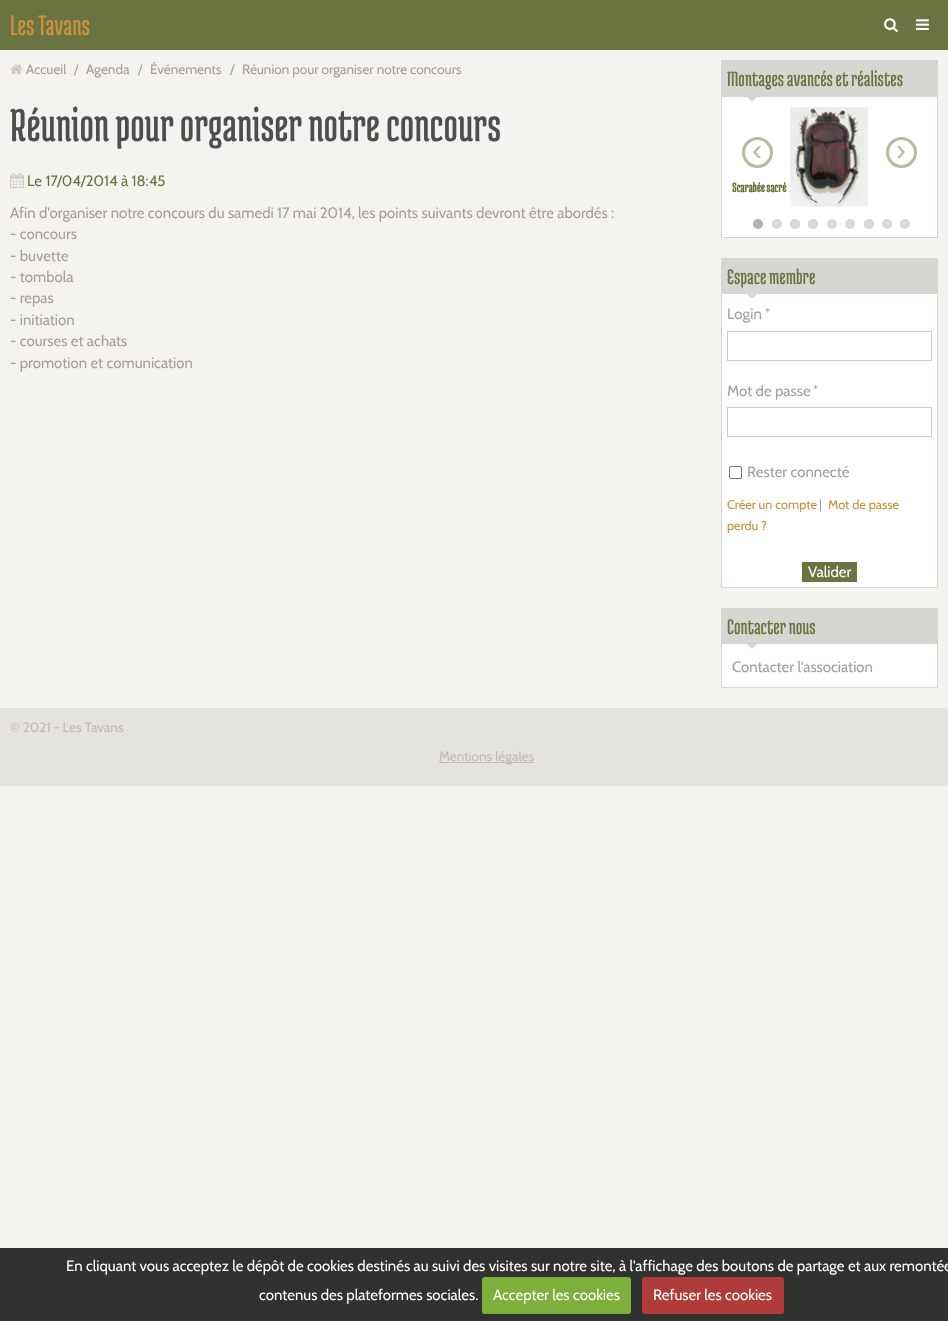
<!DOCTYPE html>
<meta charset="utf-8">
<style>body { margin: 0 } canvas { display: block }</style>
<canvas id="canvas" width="948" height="1321"></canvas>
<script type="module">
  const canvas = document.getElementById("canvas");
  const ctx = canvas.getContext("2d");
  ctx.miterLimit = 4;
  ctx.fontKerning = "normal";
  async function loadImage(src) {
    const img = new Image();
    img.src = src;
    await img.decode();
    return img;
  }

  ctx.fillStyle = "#f5f3ef";
  ctx.fillRect(0, 0, 948, 1321);
  ctx.fillStyle = "#6a7440";
  ctx.fillRect(0, 0, 948, 50);
  ctx.font = "30px Medula One";
  ctx.fillStyle = "#c89041";
  ctx.fillText("Les Tavans", 10, 35);
  ctx.drawImage(await loadImage("img1.png"), 884, 18, 14, 15);
  ctx.drawImage(await loadImage("img2.png"), 916, 19, 13, 11);
  ctx.drawImage(await loadImage("img3.png"), 10, 64, 13, 10);
  ctx.font = "13.5px Cabin";
  ctx.fillStyle = "#a39f9d";
  ctx.fillText("Accueil", 26, 74);
  ctx.fillText("/", 74, 74);
  ctx.fillText("Agenda", 86, 74);
  ctx.fillText("/", 138, 74);
  ctx.fillText("Événements", 150, 74);
  ctx.fillText("/", 230, 74);
  ctx.fillText("Réunion pour organiser notre concours", 242, 74);
  ctx.font = "49.5px Medula One";
  ctx.fillStyle = "#4e4e4e";
  ctx.fillText("Réunion pour organiser notre concours", 10, 141);
  ctx.drawImage(await loadImage("img4.png"), 10, 173, 14, 16);
  ctx.font = "15px Cabin";
  ctx.fillStyle = "#6a7440";
  ctx.fillText("Le 17/04/2014 à 18:45", 27, 186);
  ctx.fillStyle = "#a39f9d";
  ctx.fillText("Afin d'organiser notre concours du samedi 17 mai 2014, les points suivants devront être abordés :", 10, 218);
  ctx.fillText("- concours", 10, 239);
  ctx.fillText("- buvette", 10, 261);
  ctx.fillText("- tombola", 10, 282);
  ctx.fillText("- repas", 10, 303);
  ctx.fillText("- initiation", 10, 325);
  ctx.fillText("- courses et achats", 10, 346);
  ctx.fillText("- promotion et comunication", 10, 368);
  ctx.fillStyle = "#ffffff";
  ctx.fillRect(722, 97, 215, 140);
  ctx.strokeStyle = "#d8d6d2";
  ctx.strokeRect(721.5, 60.5, 216, 177);
  ctx.fillStyle = "#d8d6d2";
  ctx.fillRect(722, 61, 215, 36);
  ctx.font = "22.5px Medula One";
  ctx.fillStyle = "#6a7440";
  ctx.fillText("Montages avancés et réalistes", 727, 86);
  ctx.fillStyle = "#d8d6d2";
  ctx.beginPath();
  ctx.moveTo(747, 97);
  ctx.lineTo(757, 97);
  ctx.lineTo(752, 102);
  ctx.closePath();
  ctx.fill();
  ctx.beginPath();
  ctx.arc(757.5, 152.5, 14, 0, Math.PI * 2);
  ctx.strokeStyle = "#b5baa0";
  ctx.lineWidth = 3;
  ctx.stroke();
  ctx.font = "30px Liberation Sans";
  ctx.fillStyle = "#b5baa0";
  ctx.fillText("‹", 752, 160);
  ctx.beginPath();
  ctx.arc(901.5, 152.5, 14, 0, Math.PI * 2);
  ctx.stroke();
  ctx.fillText("›", 896, 160);
  ctx.font = "bold 14px Medula One";
  ctx.fillStyle = "#6a7440";
  ctx.fillText("Scarabée sacré", 732, 192);
  ctx.drawImage(await loadImage("img5.png"), 790, 107, 78, 100);
  ctx.fillStyle = "#b3b3b3";
  ctx.beginPath();
  ctx.arc(758, 224, 5, 0, Math.PI * 2);
  ctx.fill();
  ctx.fillStyle = "#d9d9d9";
  ctx.beginPath();
  ctx.arc(777, 224, 5, 0, Math.PI * 2);
  ctx.fill();
  ctx.beginPath();
  ctx.arc(795, 224, 5, 0, Math.PI * 2);
  ctx.fill();
  ctx.beginPath();
  ctx.arc(813, 224, 5, 0, Math.PI * 2);
  ctx.fill();
  ctx.beginPath();
  ctx.arc(832, 224, 5, 0, Math.PI * 2);
  ctx.fill();
  ctx.beginPath();
  ctx.arc(850, 224, 5, 0, Math.PI * 2);
  ctx.fill();
  ctx.beginPath();
  ctx.arc(869, 224, 5, 0, Math.PI * 2);
  ctx.fill();
  ctx.beginPath();
  ctx.arc(887, 224, 5, 0, Math.PI * 2);
  ctx.fill();
  ctx.beginPath();
  ctx.arc(905, 224, 5, 0, Math.PI * 2);
  ctx.fill();
  ctx.fillStyle = "#ffffff";
  ctx.fillRect(722, 294, 215, 293);
  ctx.strokeStyle = "#d8d6d2";
  ctx.lineWidth = 1;
  ctx.strokeRect(721.5, 258.5, 216, 329);
  ctx.fillStyle = "#d8d6d2";
  ctx.fillRect(722, 259, 215, 35);
  ctx.font = "22.5px Medula One";
  ctx.fillStyle = "#6a7440";
  ctx.fillText("Espace membre", 727, 284);
  ctx.fillStyle = "#d8d6d2";
  ctx.beginPath();
  ctx.moveTo(747, 294);
  ctx.lineTo(757, 294);
  ctx.lineTo(752, 299);
  ctx.closePath();
  ctx.fill();
  ctx.font = "15px Cabin";
  ctx.fillStyle = "#a39f9d";
  ctx.fillText("Login", 727, 319);
  ctx.font = "12px Cabin";
  ctx.fillText("*", 765, 317);
  ctx.strokeStyle = "#cccccc";
  ctx.strokeRect(727.5, 331.5, 204, 29);
  ctx.font = "15px Cabin";
  ctx.fillText("Mot de passe", 727, 396);
  ctx.font = "12px Cabin";
  ctx.fillText("*", 813, 394);
  ctx.strokeRect(727.5, 407.5, 204, 29);
  ctx.beginPath();
  ctx.roundRect(729.5, 466.5, 12, 12, 1.5);
  ctx.strokeStyle = "#767676";
  ctx.stroke();
  ctx.font = "15px Cabin";
  ctx.fillText("Rester connecté", 747, 477);
  ctx.font = "12.75px Cabin";
  ctx.fillStyle = "#c89041";
  ctx.fillText("Créer un compte", 727, 509);
  ctx.fillStyle = "#a39f9d";
  ctx.fillText("|", 819, 509);
  ctx.fillStyle = "#c89041";
  ctx.fillText("Mot de passe", 828, 509);
  ctx.fillText("perdu ?", 727, 530);
  ctx.fillStyle = "#6a7440";
  ctx.fillRect(802, 562, 55, 20);
  ctx.font = "15px Cabin";
  ctx.fillStyle = "#ffffff";
  ctx.fillText("Valider", 808, 577);
  ctx.fillRect(722, 644, 215, 43);
  ctx.strokeStyle = "#d8d6d2";
  ctx.strokeRect(721.5, 608.5, 216, 79);
  ctx.fillStyle = "#d8d6d2";
  ctx.fillRect(722, 609, 215, 35);
  ctx.font = "22.5px Medula One";
  ctx.fillStyle = "#6a7440";
  ctx.fillText("Contacter nous", 727, 634);
  ctx.fillStyle = "#d8d6d2";
  ctx.beginPath();
  ctx.moveTo(747, 644);
  ctx.lineTo(757, 644);
  ctx.lineTo(752, 649);
  ctx.closePath();
  ctx.fill();
  ctx.font = "15px Cabin";
  ctx.fillStyle = "#a39f9d";
  ctx.fillText("Contacter l'association", 732, 672);
  ctx.fillStyle = "#e5e3df";
  ctx.fillRect(0, 708, 948, 78);
  ctx.font = "13.5px Cabin";
  ctx.fillStyle = "#c1bcb2";
  ctx.fillText("© 2021 - Les Tavans", 10, 732);
  ctx.fillRect(439, 762, 95, 1);
  ctx.fillText("Mentions légales", 439, 761);
  ctx.fillStyle = "#313130";
  ctx.fillRect(0, 1248, 948, 73);
  ctx.font = "15px Cabin";
  ctx.fillStyle = "#ffffff";
  ctx.fillText("En cliquant vous acceptez le dépôt de cookies destinés au suivi des visites sur notre site, à l'affichage des boutons de partage et aux remontée", 66, 1271);
  ctx.fillText("contenus des plateformes sociales.", 259, 1300);
  ctx.fillStyle = "#7daf3b";
  ctx.beginPath();
  ctx.roundRect(482, 1277, 149, 37, 3);
  ctx.fill();
  ctx.fillStyle = "#ffffff";
  ctx.fillText("Accepter les cookies", 493, 1300);
  ctx.fillStyle = "#af3b3b";
  ctx.beginPath();
  ctx.roundRect(642, 1277, 142, 37, 3);
  ctx.fill();
  ctx.fillStyle = "#ffffff";
  ctx.fillText("Refuser les cookies", 653, 1300);
</script>
